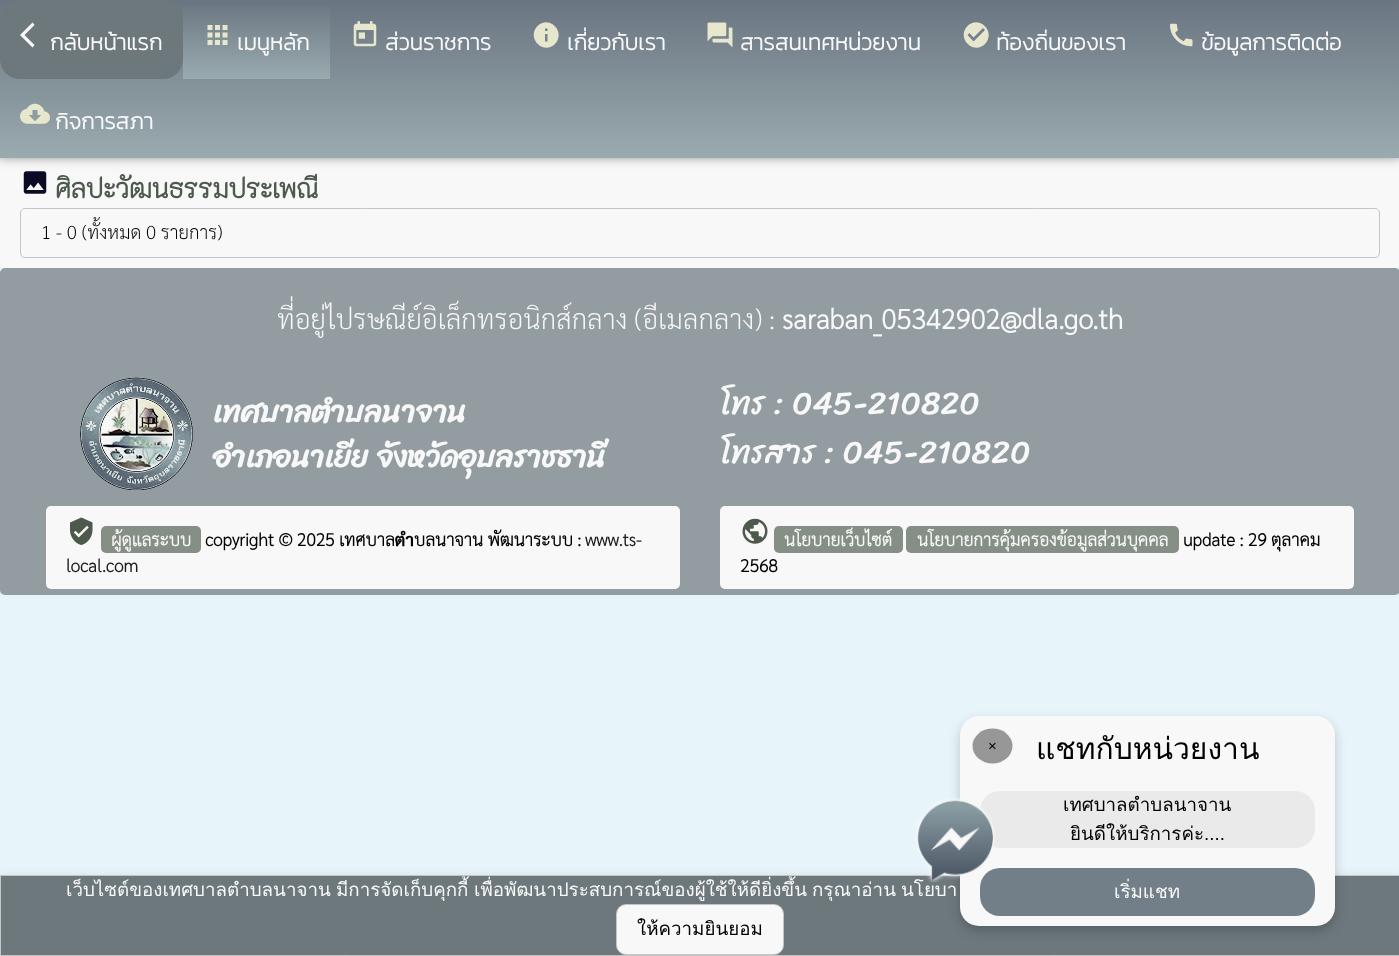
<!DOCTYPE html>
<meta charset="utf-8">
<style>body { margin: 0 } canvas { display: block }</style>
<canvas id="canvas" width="1399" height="956"></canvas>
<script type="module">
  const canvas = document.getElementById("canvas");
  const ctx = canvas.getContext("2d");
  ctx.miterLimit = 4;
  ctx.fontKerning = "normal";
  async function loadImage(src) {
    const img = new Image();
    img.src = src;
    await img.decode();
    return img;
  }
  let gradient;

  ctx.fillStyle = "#e7f5fb";
  ctx.fillRect(0, 0, 1399, 956);
  ctx.fillStyle = "#f8f8f8";
  ctx.beginPath();
  ctx.roundRect(0, 158, 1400, 110, 5);
  ctx.fill();
  ctx.drawImage(await loadImage("img6.png"), 23, 171, 24, 23);
  ctx.fillStyle = "rgba(0, 0, 0, 0.12)";
  ctx.filter = "blur(6px)";
  ctx.beginPath();
  ctx.rect(0, 3, 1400, 157);
  ctx.fill();
  ctx.filter = "none";
  ctx.fillStyle = "rgba(0, 0, 0, 0.16)";
  ctx.filter = "blur(3px)";
  ctx.beginPath();
  ctx.rect(0, 3, 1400, 157);
  ctx.fill();
  ctx.filter = "none";
  gradient = ctx.createLinearGradient(700, 0, 700, 158);
  gradient.addColorStop(0, "#6a7581");
  gradient.addColorStop(1, "#9aabaf");
  ctx.fillStyle = gradient;
  ctx.fillRect(0, 0, 1399, 158);
  ctx.fillStyle = "#6d787d";
  ctx.beginPath();
  ctx.roundRect(0, 0, 183, 79, 20);
  ctx.fill();
  ctx.fillStyle = "#f8f8f8";
  ctx.beginPath();
  ctx.moveTo(34.5, 25);
  ctx.lineTo(24.5, 35);
  ctx.lineTo(34.5, 45);
  ctx.lineTo(32.5, 47.5);
  ctx.lineTo(20, 35);
  ctx.lineTo(32.5, 22.5);
  ctx.closePath();
  ctx.fill();
  ctx.font = "bold 22.5px Kanit";
  ctx.fillText("กลับหน้าแรก", 50, 50);
  gradient = ctx.createLinearGradient(256, 0, 256, 79);
  gradient.addColorStop(0, "#6a7581");
  gradient.addColorStop(1, "#9aabaf");
  ctx.fillStyle = gradient;
  ctx.fillRect(183, 7, 147, 72);
  ctx.drawImage(await loadImage("img1.png"), 207, 25, 21, 20);
  ctx.fillStyle = "#f8f8f8";
  ctx.fillText("เมนูหลัก", 237, 50);
  ctx.drawImage(await loadImage("img2.png"), 353, 21, 24, 26);
  ctx.fillText("ส่วนราชการ", 385, 50);
  ctx.fillStyle = "#e7e7ce";
  ctx.beginPath();
  ctx.moveTo(547.5, 31);
  ctx.lineTo(547.5, 28.5);
  ctx.lineTo(545, 28.5);
  ctx.lineTo(545, 31);
  ctx.closePath();
  ctx.moveTo(547.5, 41.5);
  ctx.lineTo(547.5, 34);
  ctx.lineTo(545, 34);
  ctx.lineTo(545, 41.5);
  ctx.closePath();
  ctx.moveTo(537.5, 26);
  ctx.bezierCurveTo(549, 14.5, 566.5, 32, 555, 44);
  ctx.bezierCurveTo(543.5, 55.5, 526, 38, 537.5, 26);
  ctx.closePath();
  ctx.fill();
  ctx.fillStyle = "#f8f8f8";
  ctx.fillText("เกี่ยวกับเรา", 567, 50);
  ctx.drawImage(await loadImage("img3.png"), 707, 22, 26, 26);
  ctx.fillText("สารสนเทศหน่วยงาน", 740, 50);
  ctx.fillStyle = "#e7e7ce";
  ctx.beginPath();
  ctx.moveTo(973.5, 41.5);
  ctx.lineTo(985, 30);
  ctx.lineTo(983, 28);
  ctx.lineTo(973.5, 37.5);
  ctx.lineTo(969.5, 33);
  ctx.lineTo(967.5, 35);
  ctx.closePath();
  ctx.moveTo(967.5, 26);
  ctx.bezierCurveTo(979, 14.5, 996.5, 32, 985, 44);
  ctx.bezierCurveTo(973.5, 55.5, 956, 38, 967.5, 26);
  ctx.closePath();
  ctx.fill();
  ctx.fillStyle = "#f8f8f8";
  ctx.fillText("ท้องถิ่นของเรา", 996, 50);
  ctx.drawImage(await loadImage("img4.png"), 1170, 23, 23, 24);
  ctx.fillText("ข้อมูลการติดต่อ", 1201, 50);
  ctx.drawImage(await loadImage("img5.png"), 20, 103, 30, 21);
  ctx.fillText("กิจการสภา", 55, 129);
  ctx.font = "bold 26.25px 'K2D'";
  ctx.fillStyle = "#4c594c";
  ctx.fillText("ศิลปะวัฒนธรรมประเพณี", 55, 198);
  ctx.beginPath();
  ctx.roundRect(20.5, 208.5, 1359, 49, 4.5);
  ctx.strokeStyle = "#c5c5c5";
  ctx.stroke();
  ctx.font = "200 18.75px Sarabun";
  ctx.fillStyle = "#000000";
  ctx.fillText("1 - 0 (ทั้งหมด 0 รายการ)", 41, 239);
  ctx.fillStyle = "#939da1";
  ctx.beginPath();
  ctx.roundRect(0, 268, 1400, 327, 5);
  ctx.fill();
  ctx.font = "200 27.5px Sarabun";
  ctx.fillStyle = "#f8f8f8";
  ctx.fillText("ที่อยู่ไปรษณีย์อิเล็กทรอนิกส์กลาง (อีเมลกลาง) :", 277, 329);
  ctx.font = "bold 27.5px Sarabun";
  ctx.fillText("saraban_05342902@dla.go.th", 782, 329);
  ctx.drawImage(await loadImage("img7.png"), 80, 377, 113, 113);
  ctx.font = "bold 30px Sriracha";
  ctx.fillText("เทศบาลตำบลนาจาน", 213, 422);
  ctx.fillText("อำเภอนาเยีย จังหวัดอุบลราชธานี", 213, 467);
  ctx.font = "32.5px Sriracha";
  ctx.fillText("โทร : 045-210820", 720, 414);
  ctx.fillText("โทรสาร : 045-210820", 720, 463);
  ctx.beginPath();
  ctx.roundRect(46, 506, 634, 83, 5);
  ctx.fill();
  ctx.drawImage(await loadImage("img8.png"), 70, 517, 23, 28);
  ctx.fillStyle = "#858f86";
  ctx.beginPath();
  ctx.roundRect(101, 526, 100, 27, 5);
  ctx.fill();
  ctx.font = "bold 17.5px Sarabun";
  ctx.fillStyle = "#f8f8f8";
  ctx.fillText("ผู้ดูแลระบบ", 111, 546);
  ctx.fillStyle = "#000000";
  ctx.fillText("copyright © 2025 เทศบาลตำบลนาจาน พัฒนาระบบ :", 205, 546);
  ctx.fillStyle = "#1c1c1c";
  ctx.fillText("www.ts-", 585, 546);
  ctx.fillText("local.com", 66, 572);
  ctx.fillStyle = "#f8f8f8";
  ctx.beginPath();
  ctx.roundRect(720, 506, 634, 83, 5);
  ctx.fill();
  ctx.drawImage(await loadImage("img9.png"), 742, 518, 26, 26);
  ctx.fillStyle = "#858f86";
  ctx.beginPath();
  ctx.roundRect(774, 526, 129, 27, 5);
  ctx.fill();
  ctx.fillStyle = "#f8f8f8";
  ctx.fillText("นโยบายเว็บไซต์", 784, 546);
  ctx.fillStyle = "#858f86";
  ctx.beginPath();
  ctx.roundRect(906, 526, 273, 27, 5);
  ctx.fill();
  ctx.fillStyle = "#f8f8f8";
  ctx.fillText("นโยบายการคุ้มครองข้อมูลส่วนบุคคล", 917, 546);
  ctx.fillStyle = "#000000";
  ctx.fillText("update : 29 ตุลาคม", 1183, 546);
  ctx.fillText("2568", 740, 572);
  ctx.fillStyle = "rgba(0, 0, 0, 0.12)";
  ctx.filter = "blur(6px)";
  ctx.beginPath();
  ctx.rect(0, 878, 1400, 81);
  ctx.fill();
  ctx.filter = "none";
  ctx.fillStyle = "#6d787d";
  ctx.beginPath();
  ctx.rect(0.5, 875.5, 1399, 80);
  ctx.fill();
  ctx.stroke();
  ctx.fillStyle = "rgba(0, 0, 0, 0.2)";
  ctx.filter = "blur(6px)";
  ctx.beginPath();
  ctx.roundRect(960, 721, 375, 210, 19);
  ctx.fill();
  ctx.filter = "none";
  ctx.fillStyle = "#f8f8f8";
  ctx.beginPath();
  ctx.roundRect(960, 716, 375, 210, 19);
  ctx.fill();
  ctx.fillStyle = "#979797";
  ctx.beginPath();
  ctx.ellipse(992.5, 746, 20, 17.5, 0, 0, Math.PI * 2);
  ctx.fill();
  ctx.font = "15px Liberation Sans";
  ctx.fillStyle = "#000000";
  ctx.fillText("×", 988, 751);
  ctx.font = "30px Loma";
  ctx.fillText("แชทกับหน่วยงาน", 1036, 759);
  ctx.fillStyle = "#eaeaea";
  ctx.beginPath();
  ctx.roundRect(980, 791, 335, 57, 20);
  ctx.fill();
  ctx.font = "18.75px Loma";
  ctx.fillStyle = "#000000";
  ctx.fillText("เทศบาลตำบลนาจาน", 1063, 811);
  ctx.fillText("ยินดีให้บริการค่ะ", 1070, 840);
  ctx.font = "18.75px Liberation Sans";
  ctx.fillText("....", 1204, 840);
  ctx.fillStyle = "#737f88";
  ctx.beginPath();
  ctx.roundRect(980, 868, 335, 48, 20);
  ctx.fill();
  ctx.font = "18.75px Loma";
  ctx.fillStyle = "#f8f8f8";
  ctx.fillText("นโยบา", 901, 896);
  ctx.drawImage(await loadImage("img10.png"), 915, 797, 80, 86);
  ctx.fillText("เริ่มแชท", 1114, 898);
  ctx.fillText("เว็บไซต์ของเทศบาลตำบลนาจาน", 66, 896);
  ctx.fillText("มีการจัดเก็บคุกกี้", 336, 896);
  ctx.fillText("เพื่อพัฒนาประสบการณ์ของผู้ใช้ให้ดียิ่งขึ้น", 474, 896);
  ctx.fillText("กรุณาอ่าน", 812, 896);
  ctx.beginPath();
  ctx.roundRect(616.5, 904.5, 167, 50, 9.5);
  ctx.fill();
  ctx.stroke();
  ctx.fillStyle = "#000000";
  ctx.fillText("ให้ความยินยอม", 637, 935);
</script>
